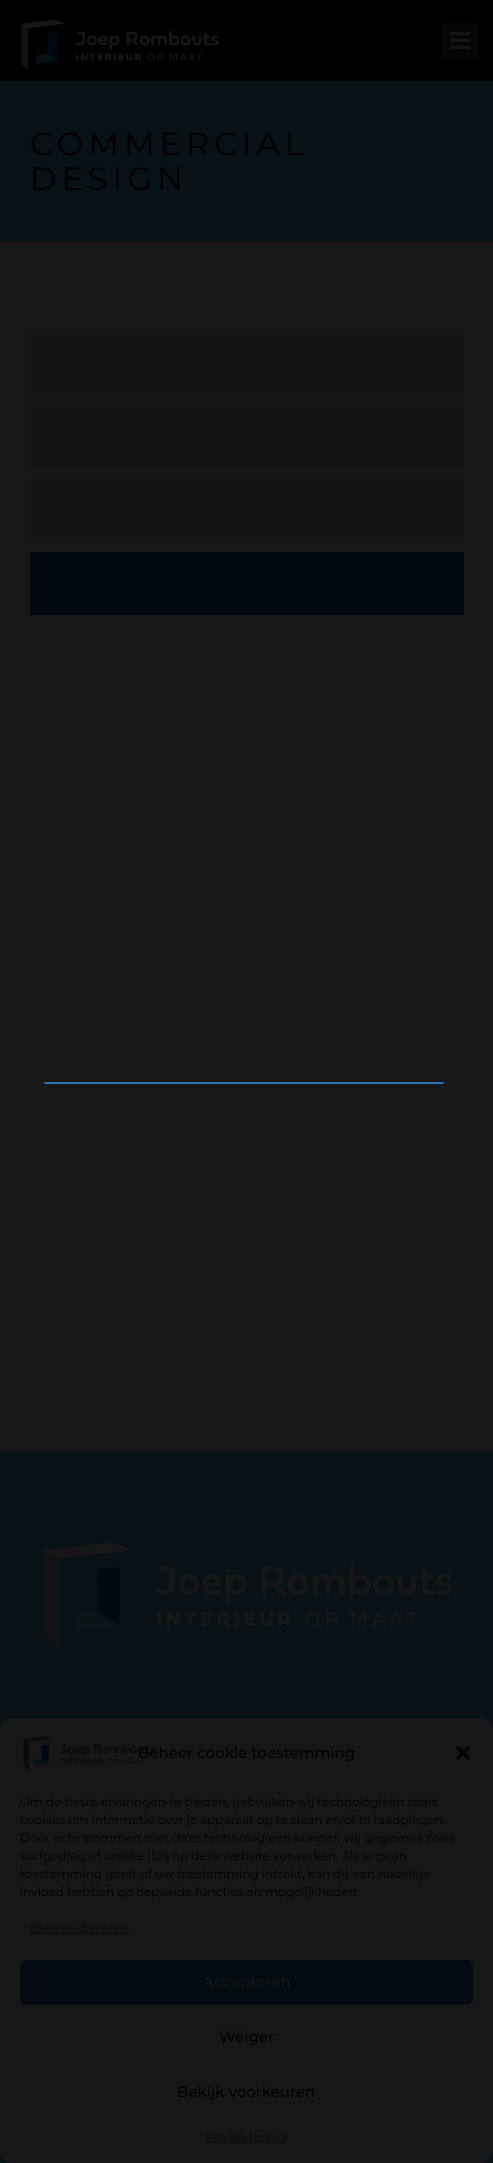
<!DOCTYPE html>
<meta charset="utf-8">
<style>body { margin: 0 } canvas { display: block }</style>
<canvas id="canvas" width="493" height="2163"></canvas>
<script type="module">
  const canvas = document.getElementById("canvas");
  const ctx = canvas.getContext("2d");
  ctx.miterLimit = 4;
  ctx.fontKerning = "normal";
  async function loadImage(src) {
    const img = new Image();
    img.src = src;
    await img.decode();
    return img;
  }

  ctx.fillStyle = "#171717";
  ctx.fillRect(0, 0, 493, 2163);
  ctx.fillStyle = "#000000";
  ctx.fillRect(0, 0, 493, 81);
  ctx.drawImage(await loadImage("img1.png"), 21, 19, 198, 51);
  ctx.fillStyle = "#050505";
  ctx.fillRect(442, 23, 36, 36);
  ctx.drawImage(await loadImage("img2.png"), 450, 31, 21, 18);
  ctx.fillStyle = "#081116";
  ctx.fillRect(0, 81, 493, 160);
  ctx.letterSpacing = "5px";
  ctx.font = "100 32px Montserrat";
  ctx.fillStyle = "#000000";
  ctx.fillText("COMMERCIAL", 30, 155);
  ctx.fillText("DESIGN", 30, 190);
  ctx.fillStyle = "#141414";
  ctx.fillRect(30, 331, 434, 64);
  ctx.fillRect(30, 405, 434, 63);
  ctx.fillRect(30, 478, 434, 64);
  ctx.fillStyle = "#020910";
  ctx.fillRect(30, 552, 434, 63);
  ctx.fillStyle = "#081116";
  ctx.fillRect(0, 1452, 493, 711);
  ctx.drawImage(await loadImage("img3.png"), 42, 1542, 411, 104);
  ctx.fillStyle = "#2673b7";
  ctx.beginPath();
  ctx.roundRect(44, 1082, 400, 2, 1);
  ctx.fill();
  ctx.fillStyle = "#171717";
  ctx.beginPath();
  ctx.roundRect(0, 1718, 493, 445, 12);
  ctx.fill();
  ctx.drawImage(await loadImage("img4.png"), 23, 1736, 133, 34);
  ctx.letterSpacing = "0px";
  ctx.font = "500 15px Montserrat";
  ctx.fillStyle = "#000000";
  ctx.fillText("Beheer cookie toestemming", 138, 1758);
  ctx.drawImage(await loadImage("img5.png"), 456, 1746, 14, 14);
  ctx.font = "100 12px Montserrat";
  ctx.fillText("Om de beste ervaringen te bieden, gebruiken wij technologieën zoals", 20, 1806);
  ctx.fillText("cookies om informatie over je apparaat op te slaan en/of te raadplegen.", 20, 1824);
  ctx.fillText("Door in te stemmen met deze technologieën kunnen wij gegevens zoals", 20, 1842);
  ctx.fillText("surfgedrag of unieke ID's op deze website verwerken. Als je geen", 20, 1860);
  ctx.fillText("toestemming geeft of uw toestemming intrekt, kan dit een nadelige", 20, 1878);
  ctx.fillText("invloed hebben op bepaalde functies en mogelijkheden.", 20, 1896);
  ctx.fillStyle = "#030a11";
  ctx.fillText("Beheer diensten", 30, 1932);
  ctx.fillRect(30, 1933, 99, 1);
  ctx.beginPath();
  ctx.roundRect(20.5, 1960.5, 452, 44, 5.5);
  ctx.fill();
  ctx.strokeStyle = "#030a11";
  ctx.stroke();
  ctx.font = "500 15px Montserrat";
  ctx.fillStyle = "#171717";
  ctx.fillText("Accepteren", 203, 1987);
  ctx.fillStyle = "#000000";
  ctx.fillText("Weiger", 219, 2042);
  ctx.fillText("Bekijk voorkeuren", 177, 2097);
  ctx.fillStyle = "#030a11";
  ctx.fillRect(206, 2142, 81, 1);
  ctx.font = "100 12px Montserrat";
  ctx.fillText("Privacybeleid", 206, 2141);
</script>
